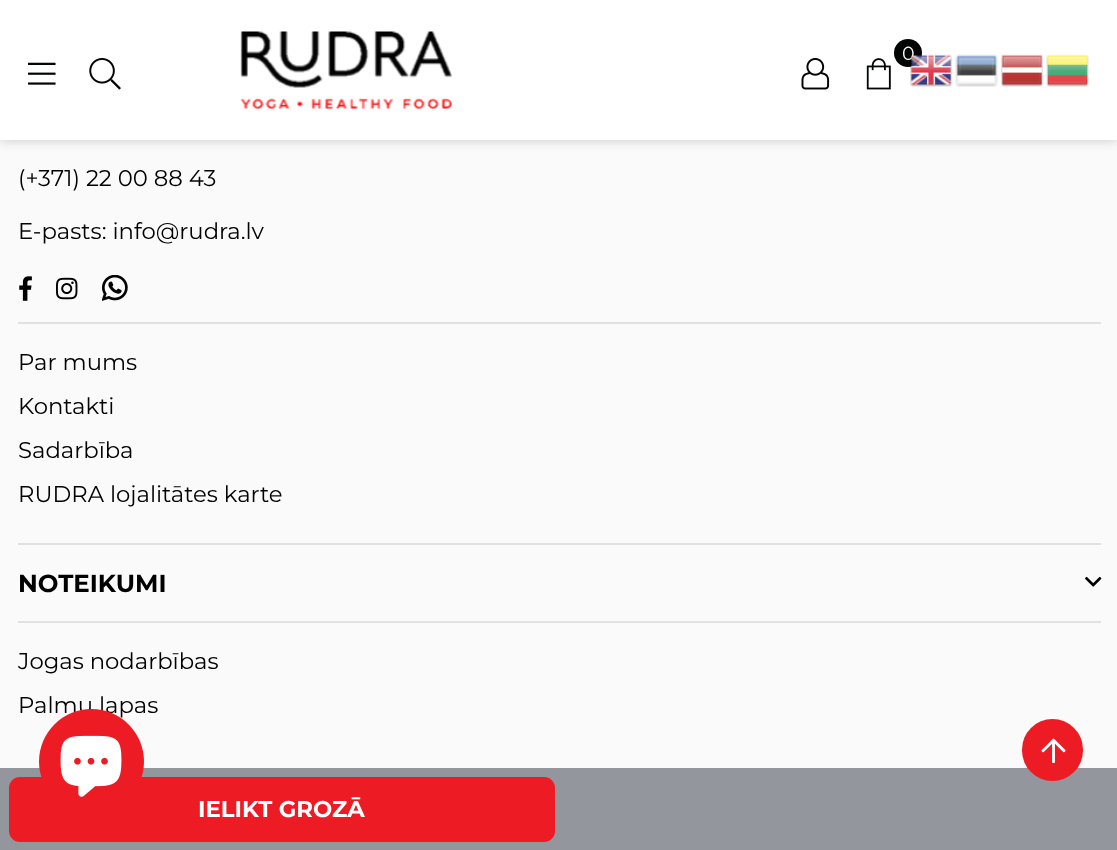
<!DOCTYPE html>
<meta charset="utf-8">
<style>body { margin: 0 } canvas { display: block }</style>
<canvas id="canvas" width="1117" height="850"></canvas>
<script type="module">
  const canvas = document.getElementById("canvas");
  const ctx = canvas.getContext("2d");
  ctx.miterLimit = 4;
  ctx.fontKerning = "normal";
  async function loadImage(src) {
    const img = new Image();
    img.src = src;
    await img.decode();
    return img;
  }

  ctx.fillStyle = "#fafafa";
  ctx.fillRect(0, 0, 1117, 850);
  ctx.fillStyle = "rgba(0, 0, 0, 0.2)";
  ctx.filter = "blur(6px)";
  ctx.beginPath();
  ctx.rect(0, 0, 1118, 140);
  ctx.fill();
  ctx.filter = "none";
  ctx.fillStyle = "#ffffff";
  ctx.fillRect(0, 0, 1117, 140);
  ctx.drawImage(await loadImage("img1.png"), 28, 62, 28, 23);
  ctx.drawImage(await loadImage("img2.png"), 89, 58, 32, 32);
  ctx.drawImage(await loadImage("img3.png"), 240, 31, 212, 78);
  ctx.fillStyle = "#030505";
  ctx.beginPath();
  ctx.arc(908, 53, 14, 0, Math.PI * 2);
  ctx.fill();
  ctx.font = "19px Montserrat";
  ctx.fillStyle = "#ffffff";
  ctx.fillText("0", 902, 60);
  ctx.drawImage(await loadImage("img4.png"), 866, 58, 25, 32);
  ctx.drawImage(await loadImage("img5.png"), 801, 58, 29, 32);
  ctx.drawImage(await loadImage("img6.png"), 910, 54, 42, 33);
  ctx.drawImage(await loadImage("img7.png"), 955, 54, 43, 33);
  ctx.drawImage(await loadImage("img8.png"), 1001, 54, 42, 33);
  ctx.drawImage(await loadImage("img9.png"), 1046, 54, 43, 33);
  ctx.font = "22.75px Montserrat";
  ctx.fillStyle = "#000000";
  ctx.fillText("(+371) 22 00 88 43", 18, 186);
  ctx.fillText("E-pasts: info@rudra.lv", 18, 239);
  ctx.drawImage(await loadImage("img10.png"), 19, 276, 13, 25);
  ctx.drawImage(await loadImage("img11.png"), 56, 277, 22, 23);
  ctx.drawImage(await loadImage("img12.png"), 102, 275, 26, 26);
  ctx.fillStyle = "#e1e1e1";
  ctx.fillRect(18, 322, 1083, 2);
  ctx.fillStyle = "#000000";
  ctx.fillText("Par mums", 18, 370);
  ctx.fillText("Kontakti", 18, 414);
  ctx.fillText("Sadarbība", 18, 458);
  ctx.fillText("RUDRA lojalitātes karte", 18, 502);
  ctx.fillStyle = "#e1e1e1";
  ctx.fillRect(18, 543, 1083, 2);
  ctx.font = "bold 24.5px Montserrat";
  ctx.fillStyle = "#000000";
  ctx.fillText("NOTEIKUMI", 18, 592);
  ctx.drawImage(await loadImage("img13.png"), 1085, 576, 17, 11);
  ctx.fillStyle = "#e1e1e1";
  ctx.fillRect(18, 621, 1083, 2);
  ctx.font = "22.75px Montserrat";
  ctx.fillStyle = "#000000";
  ctx.fillText("Jogas nodarbības", 18, 669);
  ctx.fillText("Palmu lapas", 18, 713);
  ctx.fillStyle = "#94969d";
  ctx.fillRect(0, 768, 1117, 82);
  ctx.fillStyle = "#ed1c24";
  ctx.beginPath();
  ctx.roundRect(9, 777, 546, 65, 11);
  ctx.fill();
  ctx.beginPath();
  ctx.arc(91.5, 761.5, 52.5, 0, Math.PI * 2);
  ctx.fill();
  ctx.drawImage(await loadImage("img14.png"), 60, 735, 62, 62);
  ctx.beginPath();
  ctx.roundRect(1022, 719, 61, 62, 30.5);
  ctx.fill();
  ctx.drawImage(await loadImage("img15.png"), 1041, 738, 25, 25);
  ctx.font = "bold 22.75px Montserrat";
  ctx.fillStyle = "#ffffff";
  ctx.fillText("IELIKT GROZĀ", 198, 817);
</script>
